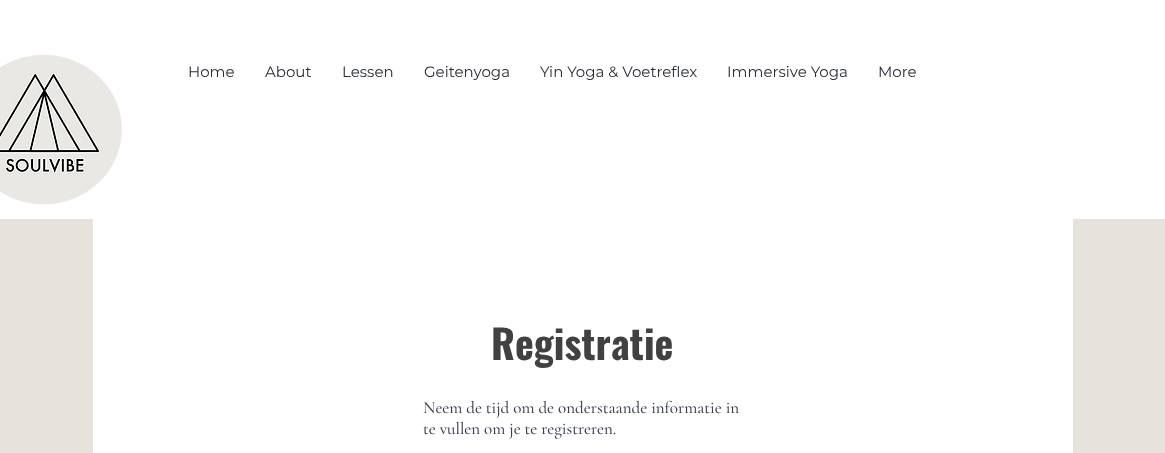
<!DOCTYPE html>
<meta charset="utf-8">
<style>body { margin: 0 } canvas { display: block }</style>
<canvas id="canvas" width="1165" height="453"></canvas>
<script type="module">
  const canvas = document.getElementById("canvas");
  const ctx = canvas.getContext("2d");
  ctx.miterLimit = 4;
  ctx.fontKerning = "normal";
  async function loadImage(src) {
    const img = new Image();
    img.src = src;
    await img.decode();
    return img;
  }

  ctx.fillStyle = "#e6e3dd";
  ctx.fillRect(0, 0, 1165, 453);
  ctx.fillStyle = "#ffffff";
  ctx.fillRect(0, 0, 1165, 219);
  ctx.drawImage(await loadImage("img1.png"), 0, 54, 122, 151);
  ctx.font = "15px Montserrat";
  ctx.fillStyle = "#2a2f36";
  ctx.fillText("Home", 188, 77);
  ctx.fillText("About", 265, 77);
  ctx.fillText("Lessen", 342, 77);
  ctx.fillText("Geitenyoga", 424, 77);
  ctx.fillText("Yin Yoga & Voetreflex", 540, 77);
  ctx.fillText("Immersive Yoga", 727, 77);
  ctx.fillText("More", 878, 77);
  ctx.fillStyle = "#ffffff";
  ctx.fillRect(93, 219, 980, 234);
  ctx.font = "bold 40px Oswald";
  ctx.fillStyle = "#414141";
  ctx.fillText("Registratie", 491, 360);
  ctx.font = "500 17px Cormorant Garamond";
  ctx.fillStyle = "#373b4d";
  ctx.fillText("Neem de tijd om de onderstaande informatie in", 423, 413);
  ctx.fillText("te vullen om je te registreren.", 423, 434);
</script>
